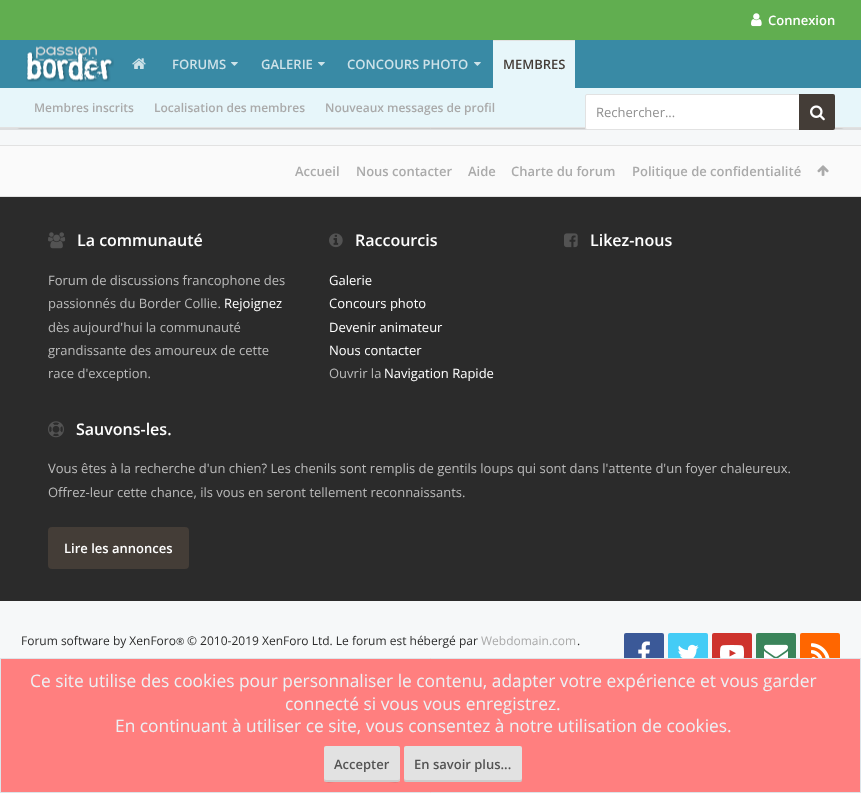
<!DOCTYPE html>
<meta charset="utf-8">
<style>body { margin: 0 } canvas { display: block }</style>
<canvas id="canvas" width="861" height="793"></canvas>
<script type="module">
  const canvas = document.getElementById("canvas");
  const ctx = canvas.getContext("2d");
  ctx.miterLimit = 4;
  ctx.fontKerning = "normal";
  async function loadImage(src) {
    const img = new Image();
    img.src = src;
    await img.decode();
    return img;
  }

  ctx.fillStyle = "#f6f8f9";
  ctx.fillRect(0, 0, 861, 793);
  ctx.fillStyle = "#61ae50";
  ctx.fillRect(0, 0, 861, 40);
  ctx.drawImage(await loadImage("img1.png"), 751, 13, 11, 14);
  ctx.font = "600 13px Open Sans";
  ctx.fillStyle = "#ffffff";
  ctx.fillText("Connexion", 768, 25);
  ctx.beginPath();
  ctx.roundRect(16.5, 89.5, 828, 39, 3.5);
  ctx.strokeStyle = "#e2e2e2";
  ctx.stroke();
  ctx.fillStyle = "rgba(0, 0, 0, 0.1)";
  ctx.fillRect(0, 128, 861, 2);
  ctx.fillStyle = "#398aa5";
  ctx.fillRect(0, 40, 861, 48);
  ctx.drawImage(await loadImage("img2.png"), 26, 46, 88, 36);
  ctx.drawImage(await loadImage("img3.png"), 132, 58, 14, 11);
  ctx.fillStyle = "#e7f6fa";
  ctx.fillRect(493, 41, 82, 47);
  ctx.fillStyle = "#e2e2e2";
  ctx.fillRect(493, 40, 82, 1);
  ctx.fillStyle = "#443d37";
  ctx.fillText("MEMBRES", 503, 69);
  ctx.fillStyle = "#e7f6fa";
  ctx.fillRect(0, 88, 861, 39);
  ctx.fillStyle = "#e2e2e2";
  ctx.fillRect(0, 127, 861, 1);
  ctx.font = "600 12px Open Sans";
  ctx.fillStyle = "#aaaaaa";
  ctx.fillText("Membres inscrits", 34, 112);
  ctx.fillText("Localisation des membres", 154, 112);
  ctx.fillText("Nouveaux messages de profil", 325, 112);
  ctx.font = "600 13px Open Sans";
  ctx.fillStyle = "#cee2e9";
  ctx.fillText("FORUMS", 172, 69);
  ctx.drawImage(await loadImage("img4.png"), 231, 62, 7, 4);
  ctx.fillText("GALERIE", 261, 69);
  ctx.drawImage(await loadImage("img4.png"), 318, 62, 7, 4);
  ctx.fillText("CONCOURS PHOTO", 347, 69);
  ctx.drawImage(await loadImage("img4.png"), 474, 62, 7, 4);
  ctx.fillStyle = "#ffffff";
  ctx.beginPath();
  ctx.roundRect(585.5, 94.5, 249, 35, 1.5);
  ctx.fill();
  ctx.stroke();
  ctx.font = "13px Open Sans";
  ctx.fillStyle = "#909090";
  ctx.fillText("Rechercher...", 596, 117);
  ctx.fillStyle = "#443d37";
  ctx.beginPath();
  ctx.roundRect(799, 94, 36, 36, [0, 2, 2, 0]);
  ctx.fill();
  ctx.drawImage(await loadImage("img5.png"), 810, 105, 15, 16);
  ctx.fillStyle = "#fafafa";
  ctx.fillRect(0, 146, 861, 50);
  ctx.fillStyle = "#e2e2e2";
  ctx.fillRect(0, 145, 861, 1);
  ctx.fillRect(0, 196, 861, 1);
  ctx.font = "600 13px Open Sans";
  ctx.fillStyle = "#aaaaaa";
  ctx.fillText("Accueil", 295, 176);
  ctx.fillText("Nous contacter", 356, 176);
  ctx.fillText("Aide", 468, 176);
  ctx.fillText("Charte du forum", 511, 176);
  ctx.fillText("Politique de confidentialité", 632, 176);
  ctx.drawImage(await loadImage("img6.png"), 817, 165, 12, 11);
  ctx.fillStyle = "#2b2b2b";
  ctx.fillRect(0, 197, 861, 404);
  ctx.drawImage(await loadImage("img7.png"), 48, 232, 18, 17);
  ctx.font = "600 16px Open Sans";
  ctx.fillStyle = "#ffffff";
  ctx.fillText("La communauté", 77, 246);
  ctx.font = "13px Open Sans";
  ctx.fillStyle = "#bbbbbb";
  ctx.fillText("Forum de discussions francophone des", 48, 285);
  ctx.fillText("passionnés du Border Collie.", 48, 308);
  ctx.fillStyle = "#ffffff";
  ctx.fillText("Rejoignez", 224, 308);
  ctx.fillStyle = "#bbbbbb";
  ctx.fillText("dès aujourd'hui la communauté", 48, 332);
  ctx.fillText("grandissante des amoureux de cette", 48, 355);
  ctx.fillText("race d'exception.", 48, 378);
  ctx.drawImage(await loadImage("img8.png"), 329, 233, 14, 15);
  ctx.font = "600 16px Open Sans";
  ctx.fillStyle = "#ffffff";
  ctx.fillText("Raccourcis", 355, 246);
  ctx.font = "13px Open Sans";
  ctx.fillText("Galerie", 329, 285);
  ctx.fillText("Concours photo", 329, 308);
  ctx.fillText("Devenir animateur", 329, 332);
  ctx.fillText("Nous contacter", 329, 355);
  ctx.fillStyle = "#bbbbbb";
  ctx.fillText("Ouvrir la", 329, 378);
  ctx.fillStyle = "#ffffff";
  ctx.fillText("Navigation Rapide", 384, 378);
  ctx.drawImage(await loadImage("img9.png"), 564, 233, 14, 15);
  ctx.font = "600 16px Open Sans";
  ctx.fillText("Likez-nous", 590, 246);
  ctx.drawImage(await loadImage("img10.png"), 48, 421, 16, 17);
  ctx.fillText("Sauvons-les.", 76, 435);
  ctx.font = "13px Open Sans";
  ctx.fillStyle = "#bbbbbb";
  ctx.fillText("Vous êtes à la recherche d'un chien? Les chenils sont remplis de gentils loups qui sont dans l'attente d'un foyer chaleureux.", 48, 473);
  ctx.fillText("Offrez-leur cette chance, ils vous en seront tellement reconnaissants.", 48, 497);
  ctx.fillStyle = "#443d37";
  ctx.beginPath();
  ctx.roundRect(48, 527, 141, 42, 4);
  ctx.fill();
  ctx.font = "600 13px Open Sans";
  ctx.fillStyle = "#ffffff";
  ctx.fillText("Lire les annonces", 64, 553);
  ctx.font = "12px Open Sans";
  ctx.fillStyle = "#2c2c2c";
  ctx.fillText("Forum software by XenForo", 21, 645);
  ctx.font = "10px Open Sans";
  ctx.fillText("®", 176, 645);
  ctx.font = "12px Open Sans";
  ctx.fillText("© 2010-2019 XenForo Ltd. Le forum est hébergé par", 187, 645);
  ctx.fillStyle = "#aaaaaa";
  ctx.fillText("Webdomain.com", 481, 645);
  ctx.fillStyle = "#2c2c2c";
  ctx.fillText(".", 577, 645);
  ctx.fillStyle = "#3b5998";
  ctx.beginPath();
  ctx.roundRect(624, 633, 40, 40, 2);
  ctx.fill();
  ctx.drawImage(await loadImage("img11.png"), 638, 641, 12, 17);
  ctx.fillStyle = "#44ccf6";
  ctx.beginPath();
  ctx.roundRect(668, 633, 40, 40, 2);
  ctx.fill();
  ctx.drawImage(await loadImage("img12.png"), 678, 644, 21, 14);
  ctx.fillStyle = "#ce332d";
  ctx.beginPath();
  ctx.roundRect(712, 633, 40, 40, 2);
  ctx.fill();
  ctx.drawImage(await loadImage("img13.png"), 720, 645, 24, 13);
  ctx.fillStyle = "#3a845a";
  ctx.beginPath();
  ctx.roundRect(756, 633, 40, 40, 2);
  ctx.fill();
  ctx.drawImage(await loadImage("img14.png"), 764, 644, 24, 14);
  ctx.fillStyle = "#ff6600";
  ctx.beginPath();
  ctx.roundRect(800, 633, 40, 40, 2);
  ctx.fill();
  ctx.drawImage(await loadImage("img15.png"), 811, 643, 19, 15);
  ctx.fillStyle = "#ff7f7f";
  ctx.beginPath();
  ctx.rect(0.5, 658.5, 860, 134);
  ctx.fill();
  ctx.strokeStyle = "#dde5ea";
  ctx.stroke();
  ctx.font = "17.35px Open Sans";
  ctx.fillStyle = "#ecf1f5";
  ctx.fillText("Ce site utilise des cookies pour personnaliser le contenu, adapter votre expérience et vous garder", 30, 687);
  ctx.fillText("connecté si vous vous enregistrez.", 285, 710);
  ctx.fillText("En continuant à utiliser ce site, vous consentez à notre utilisation de cookies.", 115, 732);
  ctx.fillStyle = "#e2e2e2";
  ctx.beginPath();
  ctx.roundRect(324, 746, 76, 36, 2);
  ctx.fill();
  ctx.fillStyle = "rgba(0, 0, 0, 0.1)";
  ctx.beginPath();
  ctx.moveTo(324, 778);
  ctx.bezierCurveTo(324, 785, 330, 782, 338, 782);
  ctx.lineTo(386, 782);
  ctx.bezierCurveTo(394, 782, 400, 785, 400, 778);
  ctx.bezierCurveTo(400, 779, 399, 780, 398, 780);
  ctx.lineTo(326, 780);
  ctx.bezierCurveTo(325, 780, 324, 779, 324, 778);
  ctx.closePath();
  ctx.fill();
  ctx.font = "600 13px Open Sans";
  ctx.fillStyle = "#535353";
  ctx.fillText("Accepter", 334, 769);
  ctx.fillStyle = "#e2e2e2";
  ctx.beginPath();
  ctx.roundRect(404, 746, 118, 36, 2);
  ctx.fill();
  ctx.fillStyle = "rgba(0, 0, 0, 0.1)";
  ctx.beginPath();
  ctx.moveTo(404, 778);
  ctx.lineTo(404, 780);
  ctx.bezierCurveTo(404, 781, 405, 782, 406, 782);
  ctx.lineTo(520, 782);
  ctx.bezierCurveTo(521, 782, 522, 781, 522, 780);
  ctx.lineTo(522, 778);
  ctx.bezierCurveTo(522, 779, 521, 780, 520, 780);
  ctx.lineTo(406, 780);
  ctx.bezierCurveTo(405, 780, 404, 779, 404, 778);
  ctx.closePath();
  ctx.fill();
  ctx.fillStyle = "#535353";
  ctx.fillText("En savoir plus...", 414, 769);
</script>
